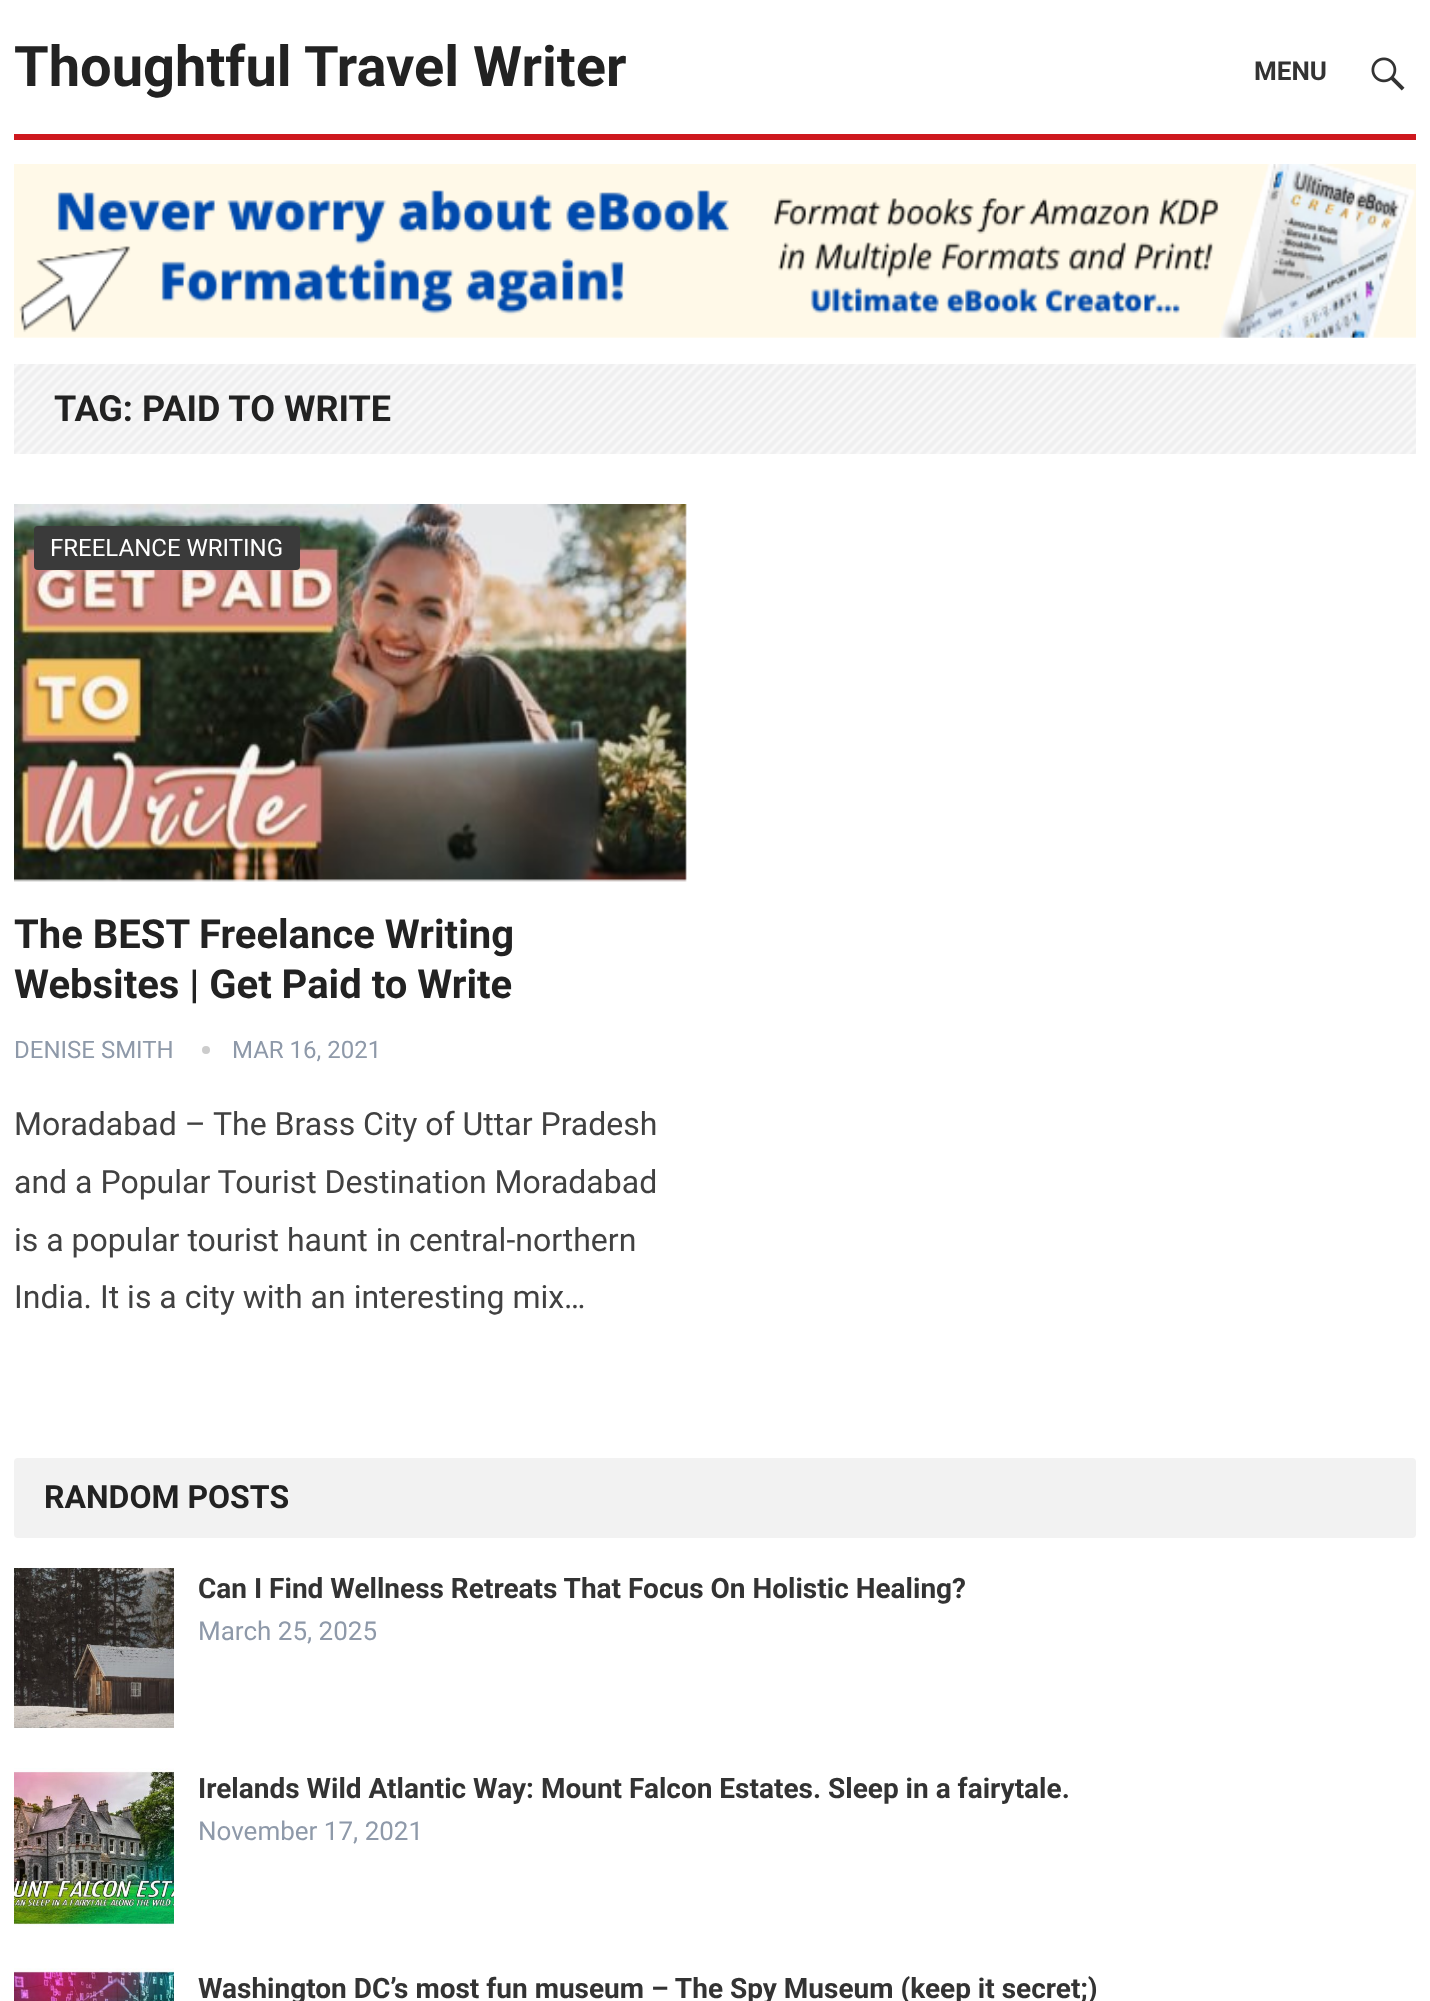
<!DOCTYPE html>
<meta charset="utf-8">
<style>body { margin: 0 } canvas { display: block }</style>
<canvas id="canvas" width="1430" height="2001"></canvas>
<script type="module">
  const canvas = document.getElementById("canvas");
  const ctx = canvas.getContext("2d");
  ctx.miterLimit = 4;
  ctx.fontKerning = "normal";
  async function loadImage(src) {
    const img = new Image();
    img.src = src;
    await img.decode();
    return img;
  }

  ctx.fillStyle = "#ffffff";
  ctx.fillRect(0, 0, 1430, 2001);
  ctx.fillStyle = "#ce181e";
  ctx.fillRect(14, 134, 1402, 6);
  ctx.font = "bold 56px Roboto";
  ctx.fillStyle = "#222222";
  ctx.fillText("Thoughtful Travel Writer", 14, 86);
  ctx.drawImage(await loadImage("img1.png"), 14, 164, 1402, 174);
  ctx.font = "bold 26px Roboto";
  ctx.fillStyle = "#333333";
  ctx.fillText("MENU", 1254, 80);
  ctx.drawImage(await loadImage("img2.png"), 1371, 57, 34, 34);
  ctx.drawImage(await loadImage("img3.png"), 14, 364, 1402, 90);
  ctx.font = "bold 36px Roboto";
  ctx.fillStyle = "#222222";
  ctx.fillText("TAG: PAID TO WRITE", 54, 421);
  ctx.drawImage(await loadImage("img4.png"), 14, 504, 673, 378);
  ctx.fillStyle = "#3a3a3a";
  ctx.beginPath();
  ctx.roundRect(34, 526, 266, 44, 4);
  ctx.fill();
  ctx.font = "24px Roboto";
  ctx.fillStyle = "#ffffff";
  ctx.fillText("FREELANCE WRITING", 50, 556);
  ctx.font = "bold 40px Roboto";
  ctx.fillStyle = "#222222";
  ctx.fillText("The BEST Freelance Writing", 14, 948);
  ctx.fillText("Websites | Get Paid to Write", 14, 998);
  ctx.font = "24px Roboto";
  ctx.fillStyle = "#8e99a9";
  ctx.fillText("DENISE SMITH", 14, 1058);
  ctx.fillStyle = "#cccccc";
  ctx.beginPath();
  ctx.arc(206, 1050, 4, 0, Math.PI * 2);
  ctx.fill();
  ctx.fillStyle = "#8e99a9";
  ctx.fillText("MAR 16, 2021", 232, 1058);
  ctx.font = "32px Roboto";
  ctx.fillStyle = "#414141";
  ctx.fillText("Moradabad – The Brass City of Uttar Pradesh", 14, 1135);
  ctx.fillText("and a Popular Tourist Destination Moradabad", 14, 1193);
  ctx.fillText("is a popular tourist haunt in central-northern", 14, 1251);
  ctx.fillText("India. It is a city with an interesting mix…", 14, 1308);
  ctx.fillStyle = "#f2f2f2";
  ctx.beginPath();
  ctx.roundRect(14, 1458, 1402, 80, 4);
  ctx.fill();
  ctx.font = "bold 32px Roboto";
  ctx.fillStyle = "#222222";
  ctx.fillText("RANDOM POSTS", 44, 1508);
  ctx.drawImage(await loadImage("img5.png"), 14, 1568, 160, 160);
  ctx.font = "bold 28px Roboto";
  ctx.fillStyle = "#333333";
  ctx.fillText("Can I Find Wellness Retreats That Focus On Holistic Healing?", 198, 1598);
  ctx.font = "26px Roboto";
  ctx.fillStyle = "#8e99a9";
  ctx.fillText("March 25, 2025", 198, 1640);
  ctx.drawImage(await loadImage("img6.png"), 14, 1768, 160, 160);
  ctx.font = "bold 28px Roboto";
  ctx.fillStyle = "#333333";
  ctx.fillText("Irelands Wild Atlantic Way: Mount Falcon Estates. Sleep in a fairytale.", 198, 1798);
  ctx.font = "26px Roboto";
  ctx.fillStyle = "#8e99a9";
  ctx.fillText("November 17, 2021", 198, 1840);
  ctx.drawImage(await loadImage("img7.png"), 14, 1968, 160, 33);
  ctx.font = "bold 28px Roboto";
  ctx.fillStyle = "#333333";
  ctx.fillText("Washington DC’s most fun museum – The Spy Museum (keep it secret;)", 198, 1998);
</script>
